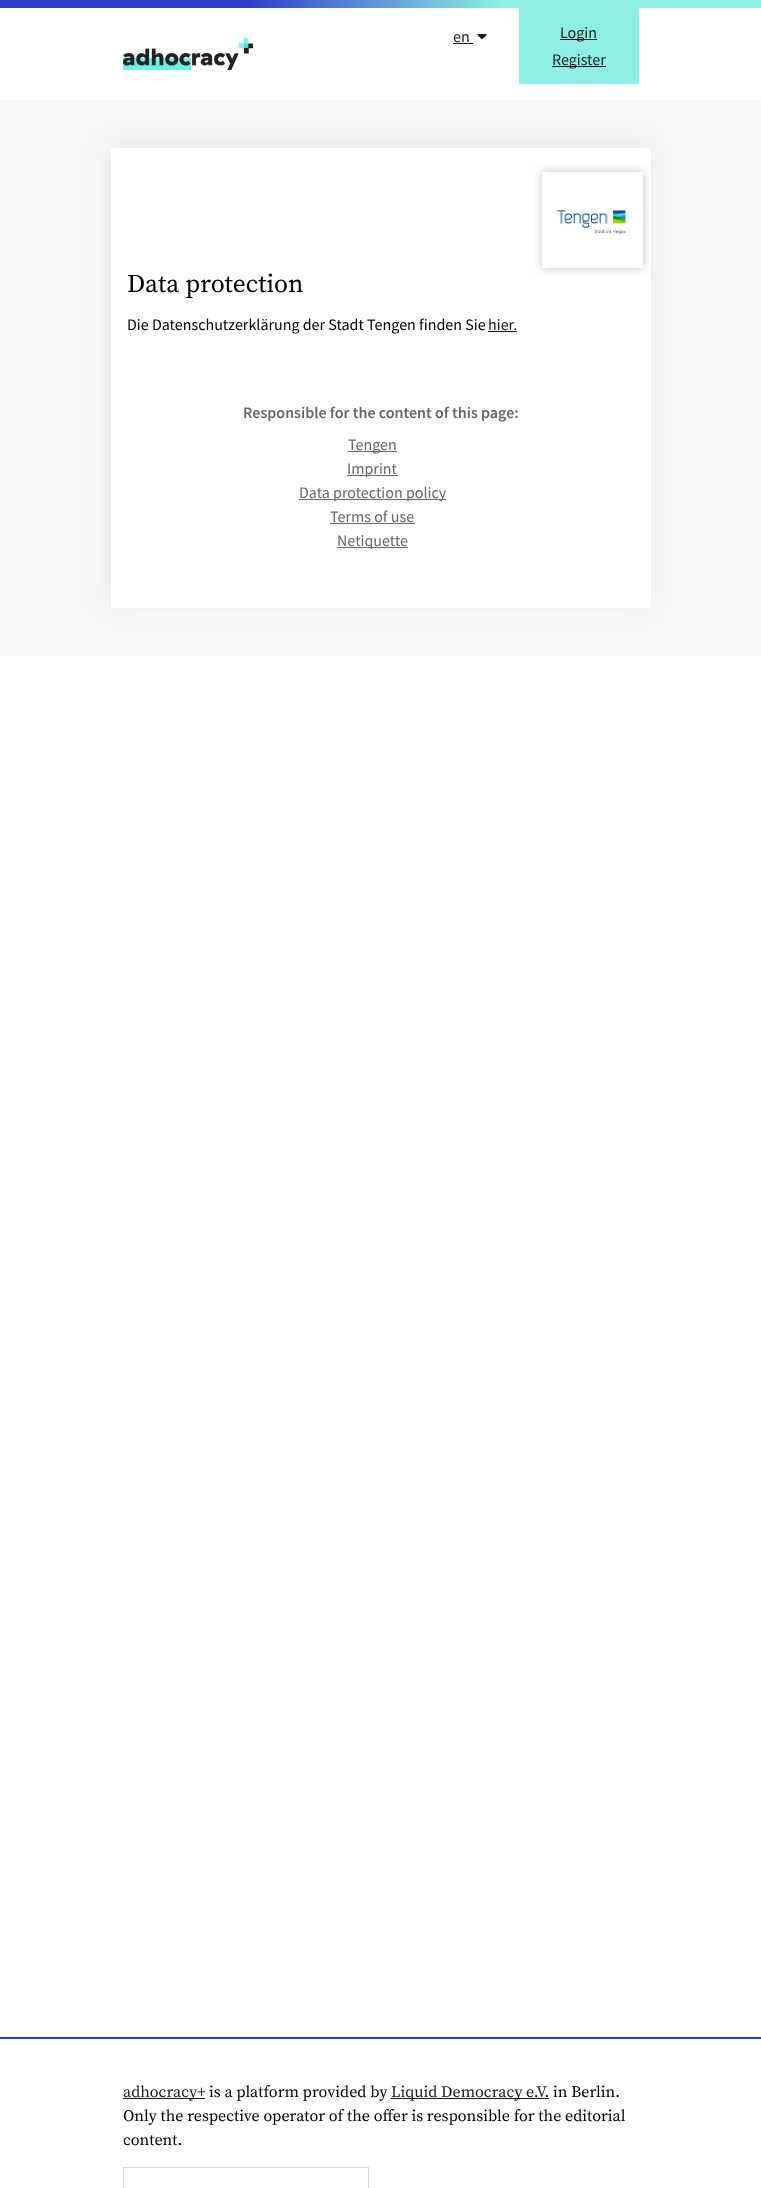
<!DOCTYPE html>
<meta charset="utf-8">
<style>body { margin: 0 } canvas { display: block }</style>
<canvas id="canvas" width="761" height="2188"></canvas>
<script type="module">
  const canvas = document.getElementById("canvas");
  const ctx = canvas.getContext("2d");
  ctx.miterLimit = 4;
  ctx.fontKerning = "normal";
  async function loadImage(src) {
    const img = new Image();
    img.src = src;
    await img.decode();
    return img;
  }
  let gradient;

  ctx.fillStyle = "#ffffff";
  ctx.fillRect(0, 0, 761, 2188);
  gradient = ctx.createLinearGradient(0, 4, 761, 4);
  gradient.addColorStop(0, "#2d40cc");
  gradient.addColorStop(0.33, "#2d40cc");
  gradient.addColorStop(0.66, "#90efe4");
  gradient.addColorStop(1, "#90efe4");
  ctx.fillStyle = gradient;
  ctx.fillRect(0, 0, 761, 8);
  ctx.drawImage(await loadImage("img1.png"), 123, 38, 130, 32);
  ctx.font = "16px Source Sans Pro";
  ctx.fillStyle = "#1a1a1a";
  ctx.fillText("en", 453, 42);
  ctx.fillRect(453, 43, 20, 1);
  ctx.drawImage(await loadImage("img2.png"), 477, 34, 10, 6);
  ctx.fillStyle = "#90efe4";
  ctx.fillRect(519, 8, 120, 76);
  ctx.fillStyle = "#1a1a1a";
  ctx.fillRect(560, 39, 37, 1);
  ctx.fillText("Login", 560, 38);
  ctx.fillRect(552, 66, 54, 1);
  ctx.fillText("Register", 552, 65);
  ctx.fillStyle = "#f7f7f7";
  ctx.fillRect(0, 100, 761, 556);
  ctx.fillStyle = "rgba(0, 0, 0, 0.05)";
  ctx.filter = "blur(13.5px)";
  ctx.beginPath();
  ctx.rect(109, 144, 540, 460);
  ctx.fill();
  ctx.filter = "none";
  ctx.fillStyle = "#ffffff";
  ctx.fillRect(111, 148, 540, 460);
  ctx.save();
  ctx.beginPath();
  ctx.moveTo(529, 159);
  ctx.lineTo(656, 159);
  ctx.lineTo(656, 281);
  ctx.lineTo(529, 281);
  ctx.closePath();
  ctx.moveTo(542, 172);
  ctx.lineTo(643, 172);
  ctx.lineTo(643, 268);
  ctx.lineTo(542, 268);
  ctx.closePath();
  ctx.clip("evenodd");
  ctx.fillStyle = "rgba(0, 0, 0, 0.25)";
  ctx.filter = "blur(4px)";
  ctx.beginPath();
  ctx.rect(542, 172, 101, 96);
  ctx.fill();
  ctx.filter = "none";
  ctx.restore();
  ctx.drawImage(await loadImage("img3.png"), 556, 210, 71, 25);
  ctx.font = "25.5px Source Serif Pro";
  ctx.fillStyle = "#000000";
  ctx.fillText("Data protection", 127, 292);
  ctx.font = "16px Source Sans Pro";
  ctx.fillText("Die Datenschutzerklärung der Stadt Tengen finden Sie", 127, 330);
  ctx.fillStyle = "#1a1a1a";
  ctx.fillText("hier.", 488, 330);
  ctx.fillRect(488, 331, 29, 1);
  ctx.font = "600 16px Source Sans Pro";
  ctx.fillStyle = "#666666";
  ctx.fillText("Responsible for the content of this page:", 243, 418);
  ctx.fillRect(348, 451, 49, 1);
  ctx.font = "16px Source Sans Pro";
  ctx.fillText("Tengen", 348, 450);
  ctx.fillRect(347, 475, 51, 1);
  ctx.fillText("Imprint", 347, 474);
  ctx.fillRect(299, 499, 147, 1);
  ctx.fillText("Data protection policy", 299, 498);
  ctx.fillText("Terms of use", 330, 522);
  ctx.fillRect(330, 523, 85, 1);
  ctx.fillRect(337, 547, 71, 1);
  ctx.fillText("Netiquette", 337, 546);
  ctx.fillStyle = "#2d40cc";
  ctx.fillRect(0, 2037, 761, 2);
  ctx.fillStyle = "#1a1a1a";
  ctx.fillRect(123, 2098, 82, 1);
  ctx.font = "16px Source Serif Pro";
  ctx.fillText("adhocracy+", 123, 2097);
  ctx.fillStyle = "#000000";
  ctx.fillText("is a platform provided by", 209, 2097);
  ctx.fillStyle = "#1a1a1a";
  ctx.fillRect(391, 2098, 158, 1);
  ctx.fillText("Liquid Democracy e.V.", 391, 2097);
  ctx.fillStyle = "#000000";
  ctx.fillText("in Berlin.", 553, 2097);
  ctx.fillText("Only the respective operator of the offer is responsible for the editorial", 123, 2121);
  ctx.fillText("content.", 123, 2145);
  ctx.strokeStyle = "#d8d8d8";
  ctx.strokeRect(123.5, 2167.5, 245, 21);
</script>
